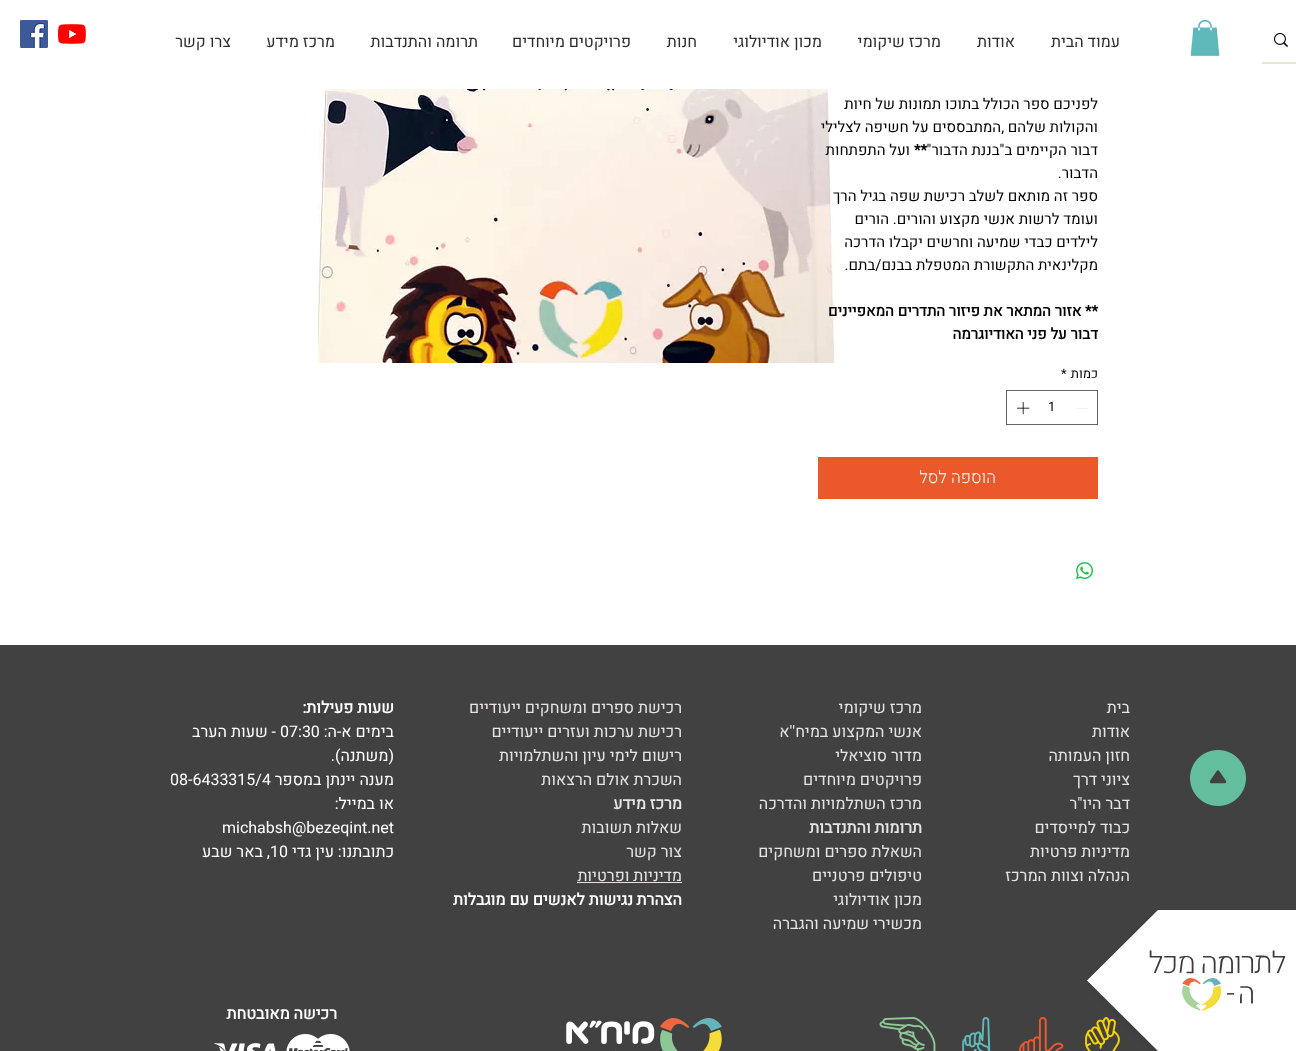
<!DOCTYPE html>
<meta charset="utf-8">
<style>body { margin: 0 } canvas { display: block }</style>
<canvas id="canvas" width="1296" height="1051"></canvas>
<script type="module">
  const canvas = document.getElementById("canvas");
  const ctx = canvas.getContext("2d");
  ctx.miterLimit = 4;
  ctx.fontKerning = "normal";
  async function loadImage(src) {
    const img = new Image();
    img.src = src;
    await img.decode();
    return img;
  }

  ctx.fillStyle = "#ffffff";
  ctx.fillRect(0, 0, 1296, 1051);
  ctx.fillStyle = "#ebe5d6";
  ctx.fillRect(1262, 62, 34, 2);
  ctx.drawImage(await loadImage("img1.png"), 1274, 33, 14, 14);
  ctx.drawImage(await loadImage("img2.png"), 1190, 20, 30, 36);
  ctx.direction = "rtl";
  ctx.font = "16px Heebo";
  ctx.fillStyle = "#2f2e2e";
  ctx.fillText("עמוד הבית", 1120, 47);
  ctx.fillText("אודות", 1015, 47);
  ctx.fillText("מרכז שיקומי", 941, 47);
  ctx.fillText("מכון אודיולוגי", 822, 47);
  ctx.fillText("חנות", 697, 47);
  ctx.fillText("פרויקטים מיוחדים", 631, 47);
  ctx.fillText("תרומה והתנדבות", 478, 47);
  ctx.fillText("מרכז מידע", 335, 47);
  ctx.fillText("צרו קשר", 231, 47);
  ctx.drawImage(await loadImage("img3.png"), 58, 24, 28, 20);
  ctx.drawImage(await loadImage("img4.png"), 20, 20, 28, 28);
  ctx.font = "15px Heebo";
  ctx.fillStyle = "#000000";
  ctx.fillText("לפניכם ספר הכולל בתוכו תמונות של חיות", 1098, 109);
  ctx.drawImage(await loadImage("img7.png"), 318, 89, 518, 274);
  ctx.fillText("והקולות שלהם ,המתבססים על חשיפה לצלילי", 1098, 132);
  ctx.fillText("דבור הקיימים ב\"בננת הדבור\"", 1098, 155);
  ctx.direction = "ltr";
  ctx.font = "bold 15px Heebo";
  ctx.fillText("**", 914, 155);
  ctx.direction = "rtl";
  ctx.font = "15px Heebo";
  ctx.fillText("ועל התפתחות", 910, 155);
  ctx.fillText("הדבור.", 1098, 178);
  ctx.fillText("ספר זה מותאם לשלב רכישת שפה בגיל הרך", 1098, 201);
  ctx.fillText("ועומד לרשות אנשי מקצוע והורים. הורים", 1098, 224);
  ctx.fillText("לילדים כבדי שמיעה וחרשים יקבלו הדרכה", 1098, 247);
  ctx.fillText("מקלינאית התקשורת המטפלת בבנם/בתם.", 1098, 270);
  ctx.font = "bold 15px Heebo";
  ctx.fillText("** אזור המתאר את פיזור התדרים המאפיינים", 1098, 316);
  ctx.fillText("דבור על פני האודיוגרמה", 1098, 339);
  ctx.font = "13px Heebo";
  ctx.fillText("כמות", 1098, 378);
  ctx.direction = "ltr";
  ctx.fillText("*", 1061, 378);
  ctx.strokeStyle = "#666666";
  ctx.strokeRect(1006.5, 390.5, 91, 34);
  ctx.fillStyle = "#e3e3e3";
  ctx.beginPath();
  ctx.moveTo(1088, 408);
  ctx.lineTo(1088, 408.5);
  ctx.lineTo(1076, 408.5);
  ctx.lineTo(1076, 408);
  ctx.closePath();
  ctx.fill("evenodd");
  ctx.fillStyle = "#000000";
  ctx.fillText("1", 1048, 411);
  ctx.drawImage(await loadImage("img5.png"), 1017, 402, 13, 13);
  ctx.fillStyle = "#ea582c";
  ctx.fillRect(818, 457, 280, 42);
  ctx.direction = "rtl";
  ctx.font = "300 17px Heebo";
  ctx.fillStyle = "#ffffff";
  ctx.fillText("הוספה לסל", 996, 483);
  ctx.drawImage(await loadImage("img6.png"), 1076, 562, 17, 17);
  ctx.fillStyle = "#414141";
  ctx.fillRect(0, 645, 1296, 406);
  ctx.drawImage(await loadImage("img10.png"), 1085, 1017, 35, 34);
  ctx.drawImage(await loadImage("img8.png"), 1087, 910, 209, 141);
  ctx.drawImage(await loadImage("img9.png"), 1190, 750, 56, 56);
  ctx.font = "16px Heebo";
  ctx.fillStyle = "#e8e3e3";
  ctx.fillText("בית", 1130, 713);
  ctx.fillText("אודות", 1130, 737);
  ctx.fillText("חזון העמותה", 1130, 761);
  ctx.fillText("ציוני דרך", 1130, 785);
  ctx.fillText("דבר היו\"ר", 1130, 809);
  ctx.fillText("כבוד למייסדים", 1130, 833);
  ctx.fillText("מדיניות פרטיות", 1130, 857);
  ctx.fillText("הנהלה וצוות המרכז", 1130, 881);
  ctx.fillText("מרכז שיקומי", 922, 713);
  ctx.fillText("אנשי המקצוע במיח''א", 922, 737);
  ctx.fillText("מדור סוציאלי", 922, 761);
  ctx.fillText("פרויקטים מיוחדים", 922, 785);
  ctx.fillText("מרכז השתלמויות והדרכה", 922, 809);
  ctx.font = "bold 16px Heebo";
  ctx.fillText("תרומות והתנדבות", 922, 833);
  ctx.font = "16px Heebo";
  ctx.fillText("השאלת ספרים ומשחקים", 922, 857);
  ctx.fillText("טיפולים פרטניים", 922, 881);
  ctx.fillText("מכון אודיולוגי", 922, 905);
  ctx.fillText("מכשירי שמיעה והגברה", 922, 929);
  ctx.fillText("רכישת ספרים ומשחקים ייעודיים", 682, 713);
  ctx.fillText("רכישת ערכות ועזרים ייעודיים", 682, 737);
  ctx.fillText("רישום לימי עיון והשתלמויות", 682, 761);
  ctx.fillText("השכרת אולם הרצאות", 682, 785);
  ctx.font = "bold 16px Heebo";
  ctx.fillText("מרכז מידע", 682, 809);
  ctx.font = "16px Heebo";
  ctx.fillText("שאלות תשובות", 682, 833);
  ctx.fillText("צור קשר", 682, 857);
  ctx.fillText("מדיניות ופרטיות", 682, 881);
  ctx.fillRect(577, 882, 105, 1);
  ctx.font = "bold 16px Heebo";
  ctx.fillStyle = "#ffffff";
  ctx.fillText("הצהרת", 682, 905);
  ctx.fillText("נגישות לאנשים עם מוגבלות", 633, 905);
  ctx.fillText("שעות פעילות:", 394, 713);
  ctx.font = "16px Heebo";
  ctx.fillText("בימים א-ה:", 394, 737);
  ctx.direction = "ltr";
  ctx.fillText("07:30", 280, 737);
  ctx.direction = "rtl";
  ctx.fillText("- שעות הערב", 276, 737);
  ctx.fillText("(משתנה).", 394, 761);
  ctx.fillText("מענה יינתן במספר", 394, 785);
  ctx.direction = "ltr";
  ctx.fillText("08-6433315/4", 170, 785);
  ctx.direction = "rtl";
  ctx.fillText("או במייל:", 394, 809);
  ctx.direction = "ltr";
  ctx.fillText("michabsh@bezeqint.net", 222, 833);
  ctx.direction = "rtl";
  ctx.fillText("כתובתנו:", 394, 857);
  ctx.fillText("עין גדי", 334, 857);
  ctx.direction = "ltr";
  ctx.fillText("10", 270, 857);
  ctx.direction = "rtl";
  ctx.fillText(", באר שבע", 270, 857);
  ctx.font = "bold 16px Heebo";
  ctx.fillText("רכישה מאובטחת", 337, 1019);
  ctx.drawImage(await loadImage("img11.png"), 1018, 1017, 46, 34);
  ctx.drawImage(await loadImage("img12.png"), 962, 1017, 29, 34);
  ctx.drawImage(await loadImage("img13.png"), 879, 1017, 57, 34);
  ctx.drawImage(await loadImage("img14.png"), 566, 1018, 156, 33);
  ctx.drawImage(await loadImage("img15.png"), 286, 1034, 64, 17);
  ctx.drawImage(await loadImage("img16.png"), 214, 1043, 62, 8);
</script>
